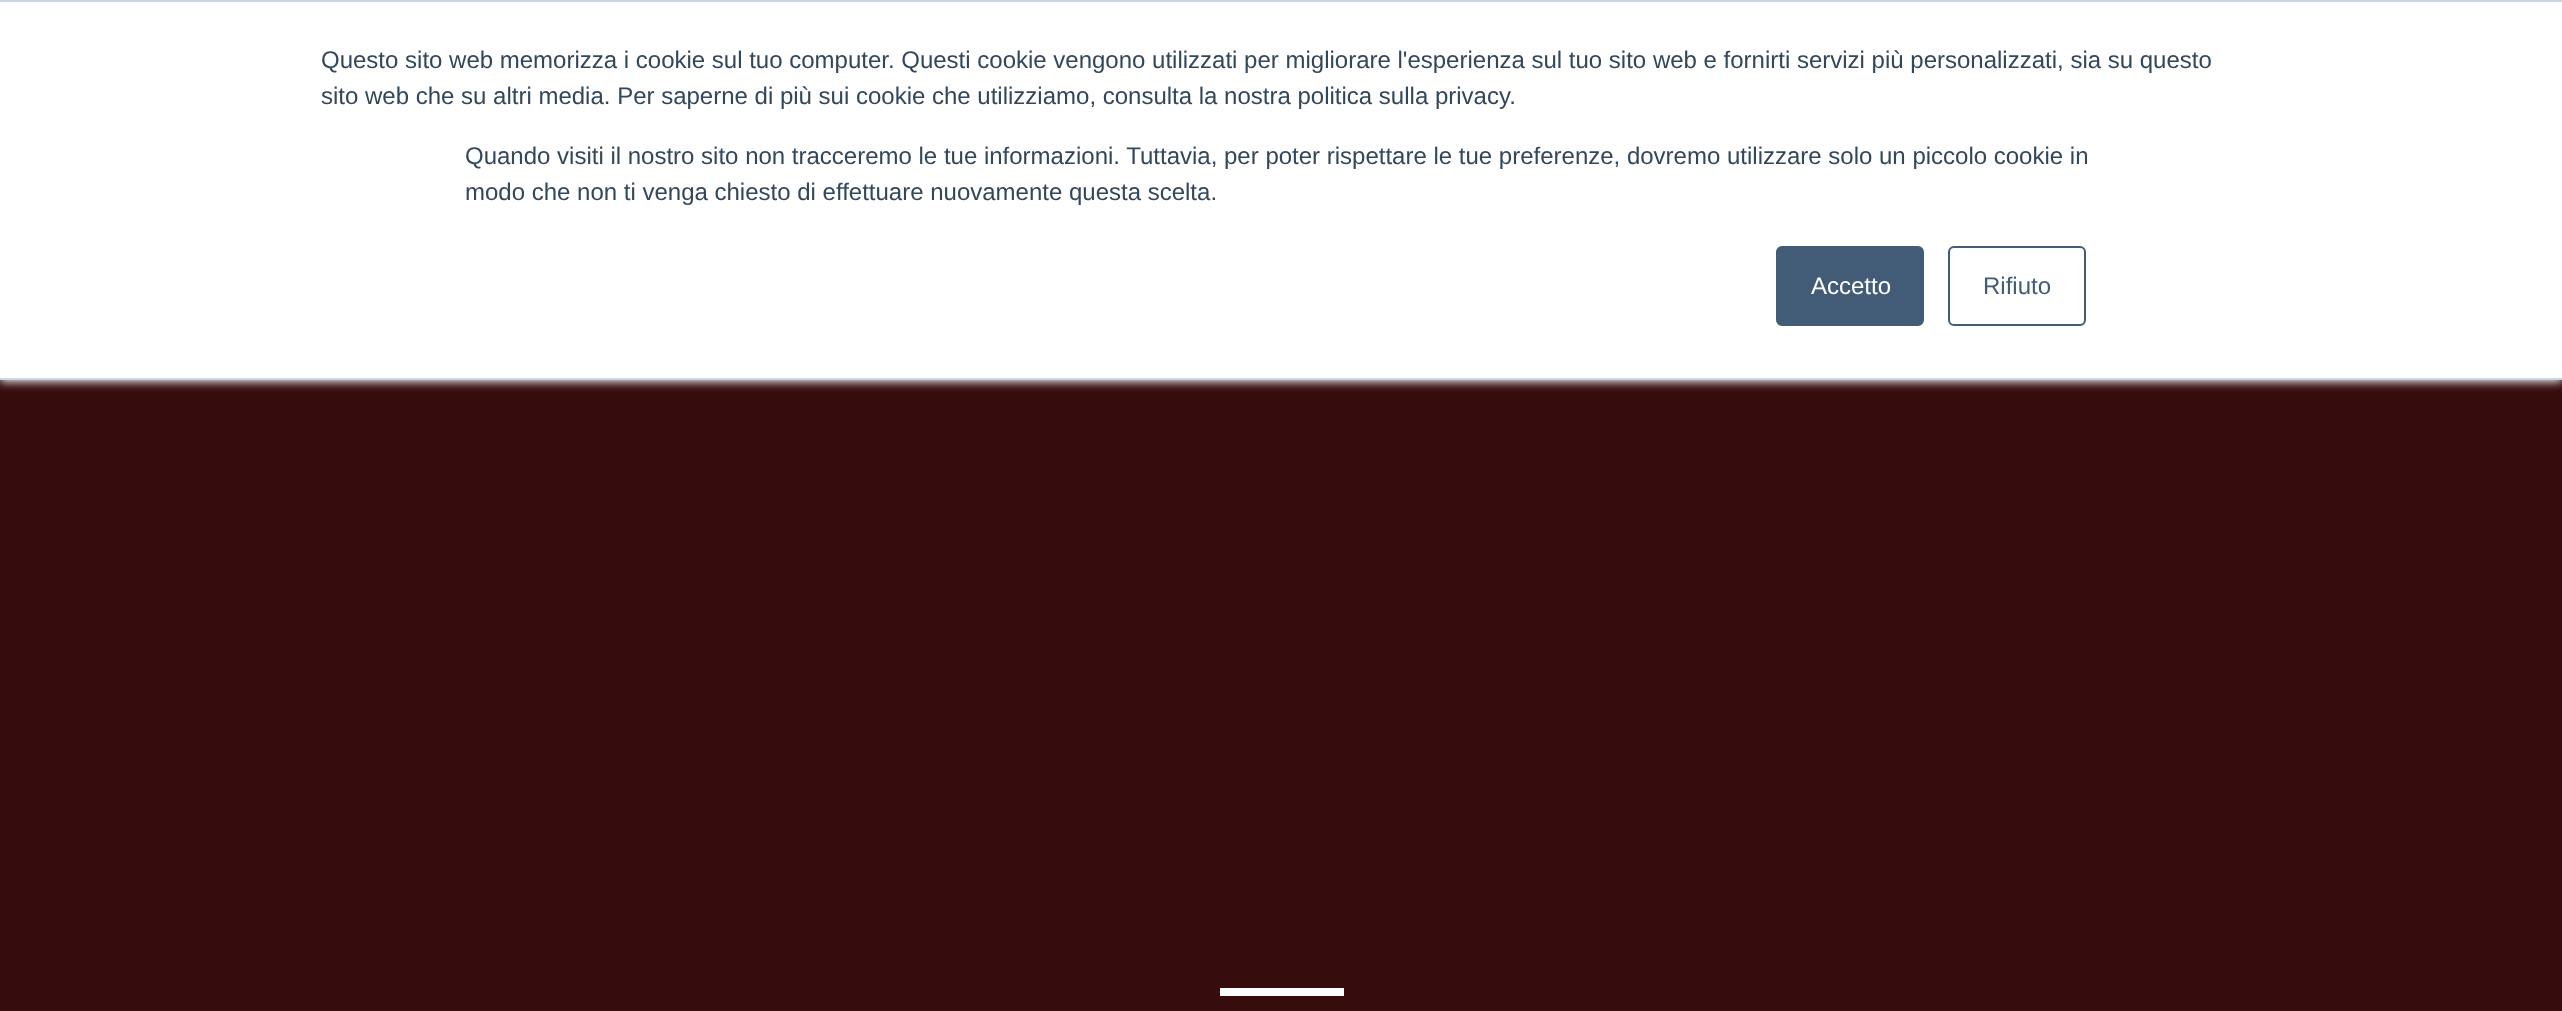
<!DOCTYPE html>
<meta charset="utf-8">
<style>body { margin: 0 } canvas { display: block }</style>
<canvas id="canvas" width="2562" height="1011"></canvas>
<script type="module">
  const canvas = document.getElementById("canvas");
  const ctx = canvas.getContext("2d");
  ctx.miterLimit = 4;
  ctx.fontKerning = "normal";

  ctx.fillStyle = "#360c0c";
  ctx.fillRect(0, 0, 2562, 1011);
  ctx.fillStyle = "#eaf0f6";
  ctx.filter = "blur(5px)";
  ctx.beginPath();
  ctx.rect(0, 2, 2562, 380);
  ctx.fill();
  ctx.filter = "none";
  ctx.fillStyle = "#ffffff";
  ctx.fillRect(0, 2, 2562, 376);
  ctx.fillStyle = "#cbd6e2";
  ctx.fillRect(0, 0, 2562, 2);
  ctx.fillRect(0, 378, 2562, 2);
  ctx.font = "24px Liberation Sans";
  ctx.fillStyle = "#33475b";
  ctx.fillText("Questo sito web memorizza i cookie sul tuo computer. Questi cookie vengono utilizzati per migliorare l'esperienza sul tuo sito web e fornirti servizi più personalizzati, sia su questo", 321, 68);
  ctx.fillText("sito web che su altri media. Per saperne di più sui cookie che utilizziamo, consulta la nostra politica sulla privacy.", 321, 104);
  ctx.fillText("Quando visiti il nostro sito non tracceremo le tue informazioni. Tuttavia, per poter rispettare le tue preferenze, dovremo utilizzare solo un piccolo cookie in", 465, 164);
  ctx.fillText("modo che non ti venga chiesto di effettuare nuovamente questa scelta.", 465, 200);
  ctx.fillStyle = "#425b76";
  ctx.beginPath();
  ctx.roundRect(1777, 247, 146, 78, 5);
  ctx.fill();
  ctx.strokeStyle = "#425b76";
  ctx.lineWidth = 2;
  ctx.stroke();
  ctx.fillStyle = "#ffffff";
  ctx.fillText("Accetto", 1811, 294);
  ctx.beginPath();
  ctx.roundRect(1949, 247, 136, 78, 5);
  ctx.stroke();
  ctx.fillStyle = "#425b76";
  ctx.fillText("Rifiuto", 1983, 294);
  ctx.fillStyle = "#fffffe";
  ctx.fillRect(1220, 988, 124, 8);
</script>
